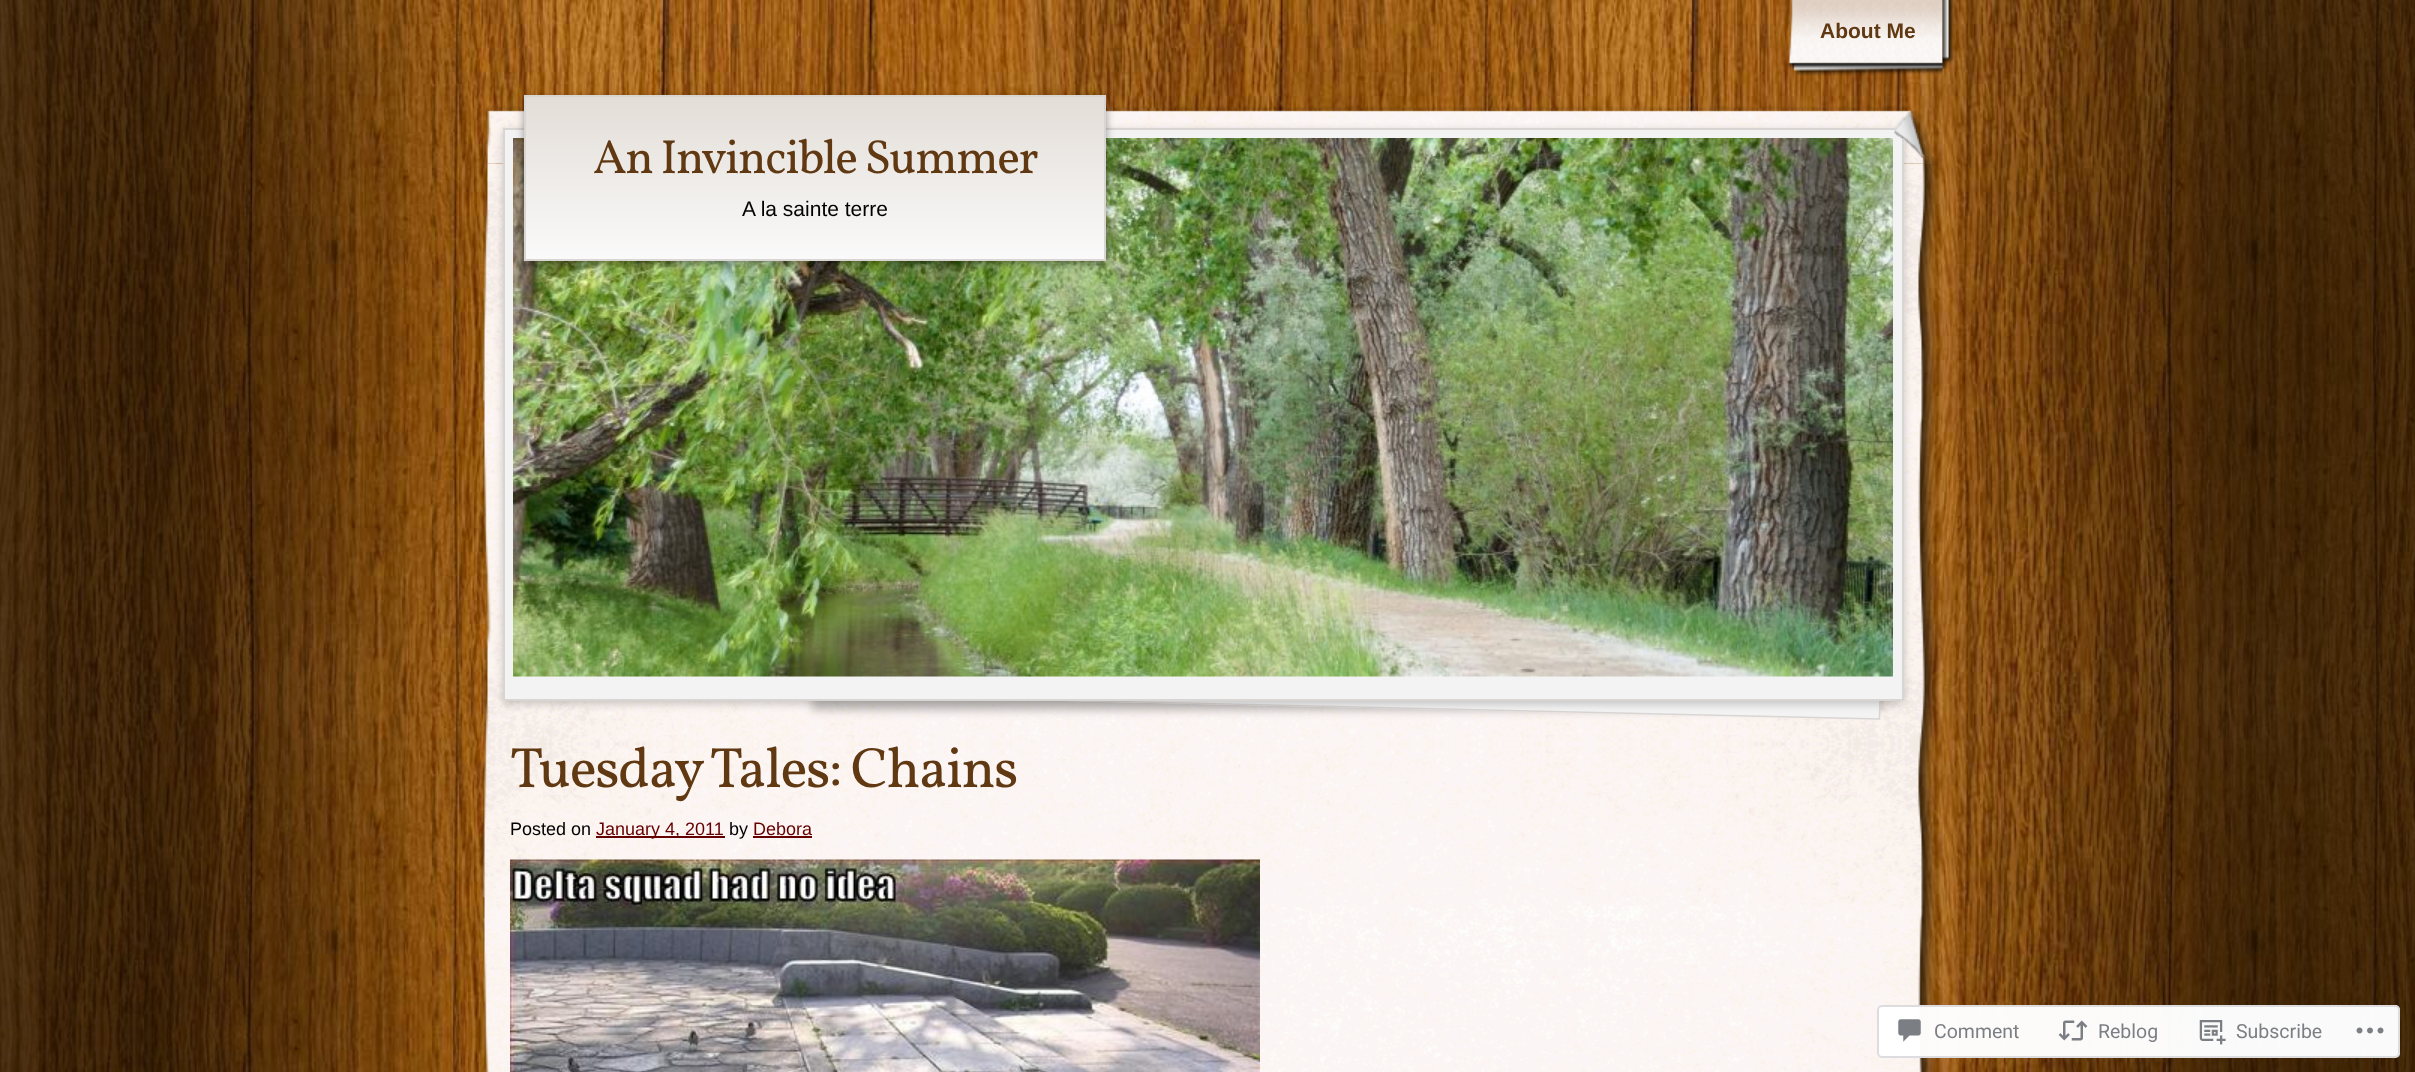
<!DOCTYPE html>
<meta charset="utf-8">
<style>body { margin: 0 } canvas { display: block }</style>
<canvas id="canvas" width="2415" height="1072"></canvas>
<script type="module">
  const canvas = document.getElementById("canvas");
  const ctx = canvas.getContext("2d");
  ctx.miterLimit = 4;
  ctx.fontKerning = "normal";
  async function loadImage(src) {
    const img = new Image();
    img.src = src;
    await img.decode();
    return img;
  }
  let gradient;

  ctx.fillStyle = "#ffffff";
  ctx.fillRect(0, 0, 2415, 1072);
  ctx.drawImage(await loadImage("img1.png"), 0, 0, 2415, 1072);
  ctx.drawImage(await loadImage("img2.png"), 0, 0, 2415, 1072);
  ctx.drawImage(await loadImage("img3.png"), 1787, 0, 156, 76);
  ctx.drawImage(await loadImage("img4.png"), 1792, 0, 151, 69);
  ctx.font = "bold 21px Liberation Sans";
  ctx.fillStyle = "#603913";
  ctx.fillText("About Me", 1820, 38);
  ctx.drawImage(await loadImage("img5.png"), 1942, 0, 13, 69);
  ctx.drawImage(await loadImage("img9.png"), 480, 163, 1459, 909);
  ctx.drawImage(await loadImage("img6.png"), 484, 106, 1454, 58);
  ctx.fillStyle = "rgba(0, 0, 0, 0.2)";
  ctx.filter = "blur(4.5px)";
  ctx.beginPath();
  ctx.rect(812, 537, 1071, 174);
  ctx.fill();
  ctx.filter = "none";
  ctx.fillStyle = "#f3f3f3";
  ctx.beginPath();
  ctx.moveTo(814, 521);
  ctx.lineTo(1884, 546);
  ctx.lineTo(1880, 720);
  ctx.lineTo(810, 695);
  ctx.closePath();
  ctx.fill();
  ctx.beginPath();
  ctx.moveTo(814.5, 522.5);
  ctx.lineTo(1883.5, 546.5);
  ctx.lineTo(1879.5, 719);
  ctx.lineTo(810.5, 694.5);
  ctx.closePath();
  ctx.strokeStyle = "#d9d5d3";
  ctx.lineWidth = 1.5;
  ctx.stroke();
  ctx.fillStyle = "rgba(0, 0, 0, 0.2)";
  ctx.filter = "blur(4.5px)";
  ctx.beginPath();
  ctx.rect(503, 131, 1401, 573);
  ctx.fill();
  ctx.filter = "none";
  ctx.fillStyle = "#f3f3f3";
  ctx.beginPath();
  ctx.rect(504, 129, 1399, 571);
  ctx.fill();
  ctx.lineWidth = 2;
  ctx.stroke();
  ctx.drawImage(await loadImage("img7.png"), 1894, 110, 38, 48);
  ctx.drawImage(await loadImage("img8.png"), 513, 138, 1380, 539);
  ctx.fillStyle = "rgba(0, 0, 0, 0.4)";
  ctx.filter = "blur(4.5px)";
  ctx.beginPath();
  ctx.rect(524, 98, 582, 166);
  ctx.fill();
  ctx.filter = "none";
  gradient = ctx.createLinearGradient(815, 96, 815, 260);
  gradient.addColorStop(0, "#e3ddd7");
  gradient.addColorStop(1, "#fafafa");
  ctx.fillStyle = gradient;
  ctx.fillRect(526, 97, 578, 162);
  ctx.strokeRect(525, 96, 580, 164);
  ctx.letterSpacing = "-1.5px";
  ctx.font = "48px Vollkorn";
  ctx.fillStyle = "#603913";
  ctx.fillText("An Invincible Summer", 593, 173);
  ctx.letterSpacing = "0px";
  ctx.font = "21px Liberation Sans";
  ctx.fillStyle = "#000000";
  ctx.fillText("A la sainte terre", 742, 216);
  ctx.letterSpacing = "-1.5px";
  ctx.font = "57px Vollkorn";
  ctx.fillStyle = "#603913";
  ctx.fillText("Tuesday Tales: Chains", 510, 787);
  ctx.letterSpacing = "0px";
  ctx.font = "18px Liberation Sans";
  ctx.fillStyle = "#000000";
  ctx.fillText("Posted on", 510, 835);
  ctx.fillStyle = "#660000";
  ctx.fillRect(596, 836, 129, 2);
  ctx.fillText("January 4, 2011", 596, 835);
  ctx.fillStyle = "#000000";
  ctx.fillText("by", 729, 835);
  ctx.fillStyle = "#660000";
  ctx.fillText("Debora", 753, 835);
  ctx.fillRect(753, 836, 59, 2);
  ctx.drawImage(await loadImage("img10.png"), 510, 859, 750, 213);
  ctx.fillStyle = "rgba(255, 255, 255, 0.98)";
  ctx.beginPath();
  ctx.roundRect(1877, 1005, 523, 53, 5);
  ctx.fill();
  ctx.beginPath();
  ctx.roundRect(1878, 1006, 521, 51, 4);
  ctx.strokeStyle = "rgba(220, 220, 222, 0.98)";
  ctx.stroke();
  ctx.drawImage(await loadImage("img11.png"), 1898, 1019, 23, 23);
  ctx.font = "19.5px Roboto";
  ctx.fillStyle = "#7b7f84";
  ctx.fillText("Comment", 1934, 1038);
  ctx.drawImage(await loadImage("img12.png"), 2058, 1020, 30, 21);
  ctx.fillText("Reblog", 2098, 1038);
  ctx.drawImage(await loadImage("img13.png"), 2199, 1020, 27, 25);
  ctx.fillText("Subscribe", 2236, 1038);
  ctx.drawImage(await loadImage("img14.png"), 2356, 1027, 28, 7);
</script>
